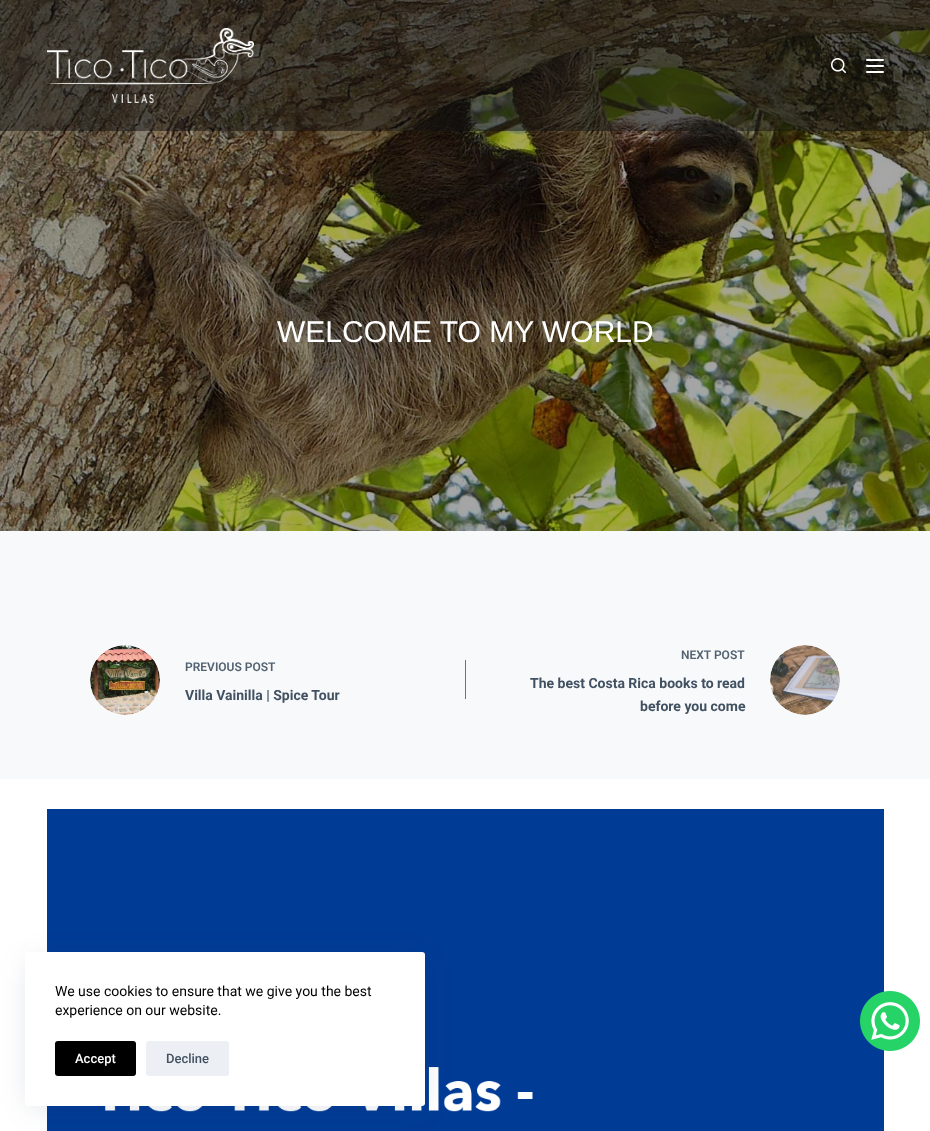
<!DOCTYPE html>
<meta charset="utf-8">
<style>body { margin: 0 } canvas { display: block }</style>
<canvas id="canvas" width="930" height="1131"></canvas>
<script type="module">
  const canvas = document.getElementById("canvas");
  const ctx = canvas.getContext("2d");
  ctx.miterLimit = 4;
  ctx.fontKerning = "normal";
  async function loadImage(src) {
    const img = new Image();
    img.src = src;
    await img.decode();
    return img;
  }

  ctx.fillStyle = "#f8f9fb";
  ctx.fillRect(0, 0, 930, 1131);
  ctx.drawImage(await loadImage("img3.png"), 0, 0, 930, 531);
  ctx.fillStyle = "rgba(17, 17, 17, 0.5)";
  ctx.fillRect(0, 0, 930, 131);
  ctx.drawImage(await loadImage("img1.png"), 47, 28, 207, 75);
  ctx.drawImage(await loadImage("img2.png"), 831, 58, 15, 15);
  ctx.fillStyle = "#ffffff";
  ctx.beginPath();
  ctx.roundRect(866, 59, 18, 2, 1);
  ctx.fill();
  ctx.beginPath();
  ctx.roundRect(866, 65, 18, 2, 1);
  ctx.fill();
  ctx.beginPath();
  ctx.roundRect(866, 71, 18, 2, 1);
  ctx.fill();
  ctx.font = "30px Liberation Sans";
  ctx.fillText("WELCOME TO MY WORLD", 277, 342);
  ctx.drawImage(await loadImage("img4.png"), 90, 645, 70, 70);
  ctx.font = "600 12px Roboto";
  ctx.fillStyle = "#536270";
  ctx.fillText("PREVIOUS POST", 185, 671);
  ctx.font = "bold 14px Roboto";
  ctx.fillStyle = "#415161";
  ctx.fillText("Villa Vainilla | Spice Tour", 185, 700);
  ctx.fillStyle = "#1c94a3";
  ctx.fillRect(465, 660, 1, 39);
  ctx.font = "600 12px Roboto";
  ctx.fillStyle = "#536270";
  ctx.fillText("NEXT POST", 681, 659);
  ctx.font = "bold 14px Roboto";
  ctx.fillStyle = "#415161";
  ctx.fillText("The best Costa Rica books to read", 530, 688);
  ctx.fillText("before you come", 640, 711);
  ctx.drawImage(await loadImage("img5.png"), 770, 645, 70, 70);
  ctx.fillStyle = "#ffffff";
  ctx.fillRect(0, 779, 930, 352);
  ctx.drawImage(await loadImage("img6.png"), 47, 809, 837, 322);
  ctx.fillStyle = "rgba(34, 56, 101, 0.15)";
  ctx.filter = "blur(15px)";
  ctx.beginPath();
  ctx.rect(30, 962, 390, 144);
  ctx.fill();
  ctx.filter = "none";
  ctx.fillStyle = "#ffffff";
  ctx.beginPath();
  ctx.roundRect(25, 952, 400, 154, 3);
  ctx.fill();
  ctx.font = "14px Roboto";
  ctx.fillStyle = "#000000";
  ctx.fillText("We use cookies to ensure that we give you the best", 55, 996);
  ctx.fillText("experience on our website.", 55, 1015);
  ctx.beginPath();
  ctx.roundRect(55, 1041, 81, 35, 3);
  ctx.fill();
  ctx.font = "500 13px Roboto";
  ctx.fillStyle = "#ffffff";
  ctx.fillText("Accept", 75, 1063);
  ctx.fillStyle = "#eceff3";
  ctx.beginPath();
  ctx.roundRect(146, 1041, 83, 35, 3);
  ctx.fill();
  ctx.fillStyle = "#415161";
  ctx.fillText("Decline", 166, 1063);
  ctx.drawImage(await loadImage("img7.png"), 860, 991, 60, 60);
</script>
